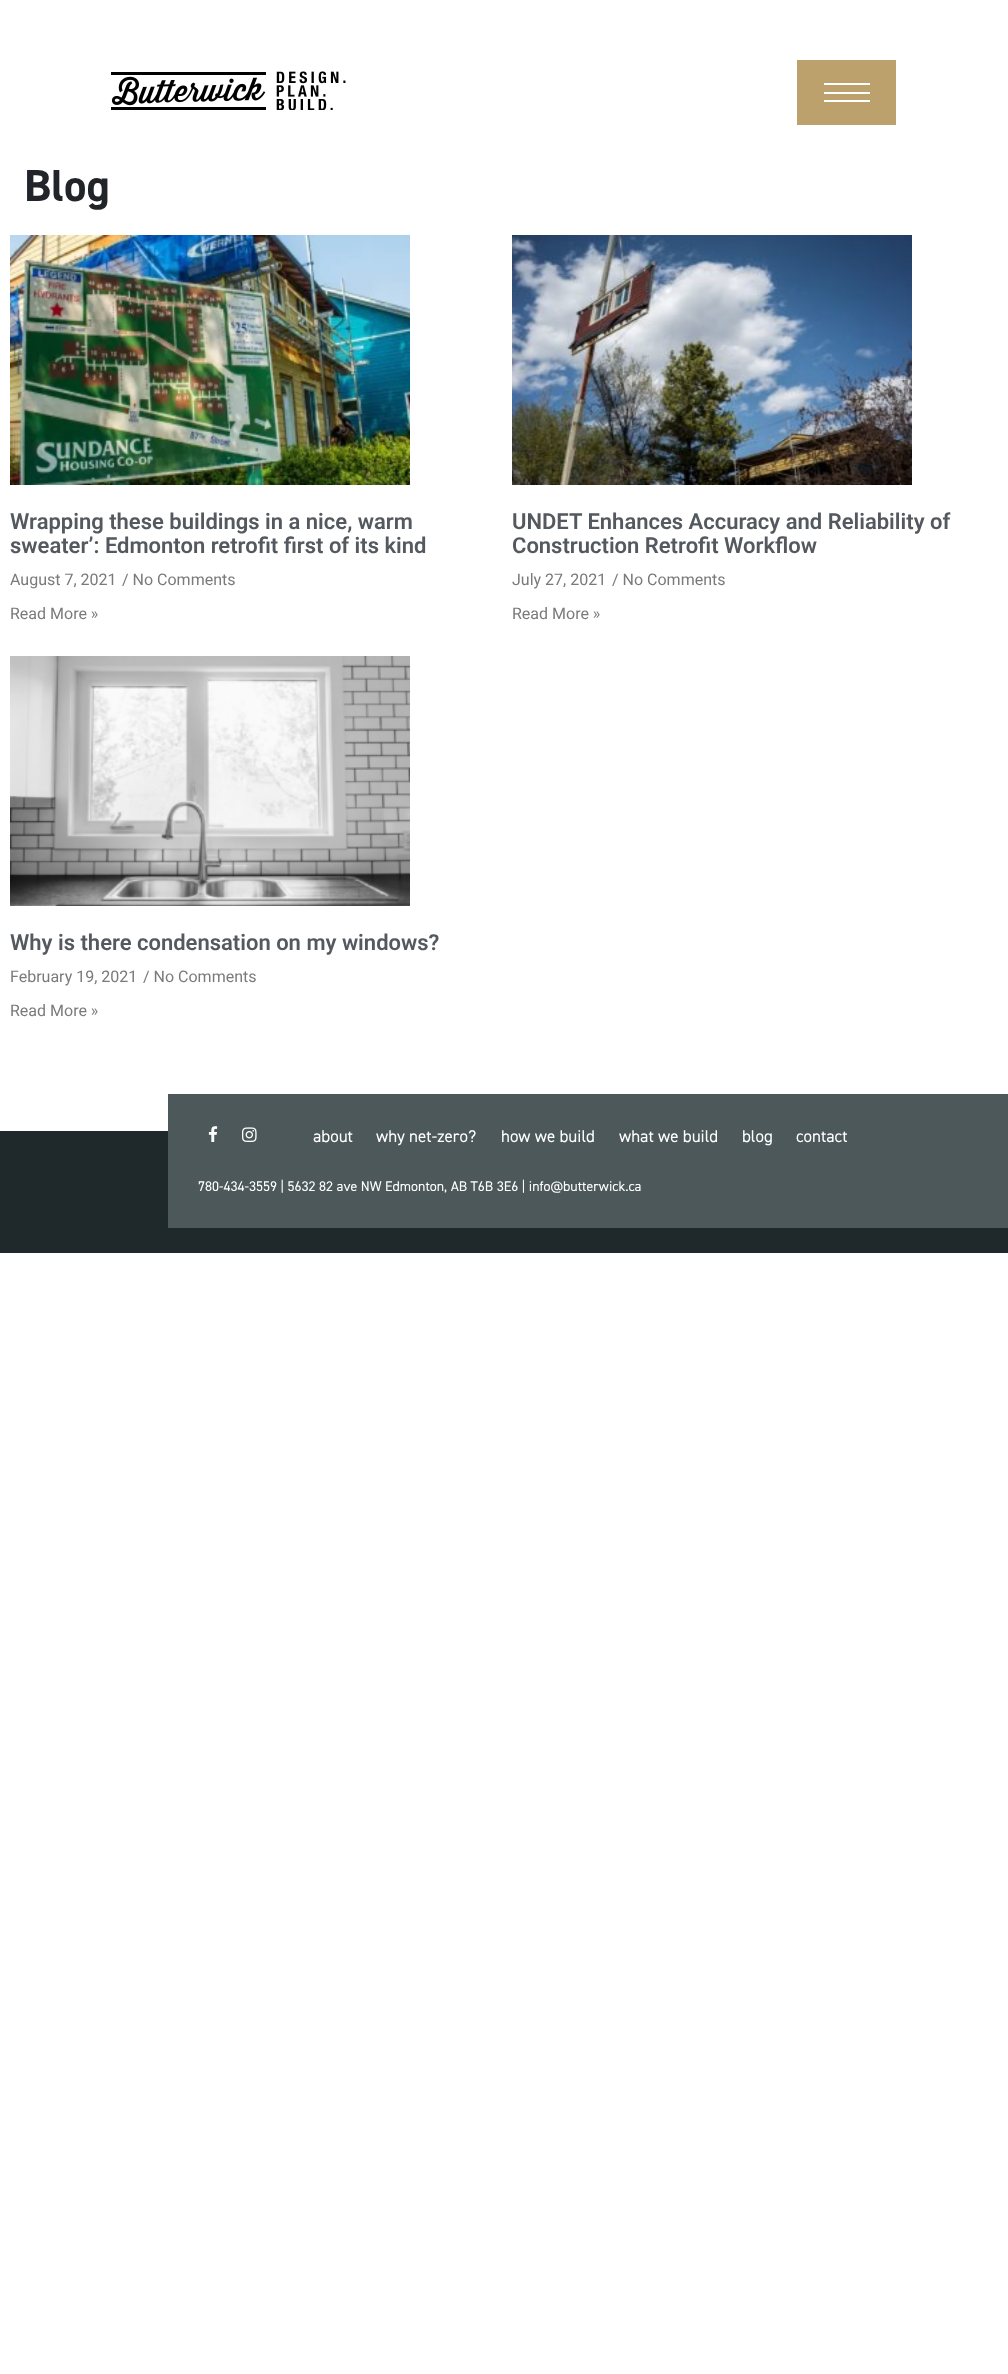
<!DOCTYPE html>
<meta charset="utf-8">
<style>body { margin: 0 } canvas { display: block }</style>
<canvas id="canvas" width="1008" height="2374"></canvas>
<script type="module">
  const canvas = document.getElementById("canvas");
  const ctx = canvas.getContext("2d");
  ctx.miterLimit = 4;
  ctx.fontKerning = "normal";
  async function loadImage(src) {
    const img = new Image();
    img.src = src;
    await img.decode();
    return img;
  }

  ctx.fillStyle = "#ffffff";
  ctx.fillRect(0, 0, 1008, 2374);
  ctx.drawImage(await loadImage("img1.png"), 111, 71, 235, 39);
  ctx.fillStyle = "#bca16c";
  ctx.fillRect(797, 60, 99, 65);
  ctx.fillStyle = "#ffffff";
  ctx.fillRect(824, 83, 46, 2);
  ctx.fillRect(824, 92, 46, 2);
  ctx.fillRect(824, 100, 46, 2);
  ctx.font = "bold 45px 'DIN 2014'";
  ctx.fillStyle = "#212529";
  ctx.fillText("Blog", 24, 201);
  ctx.drawImage(await loadImage("img2.png"), 10, 235, 400, 250);
  ctx.font = "600 22px Roboto";
  ctx.fillStyle = "#54595f";
  ctx.fillText("Wrapping these buildings in a nice, warm", 10, 529);
  ctx.fillText("sweater’: Edmonton retrofit first of its kind", 10, 553);
  ctx.font = "16px Roboto";
  ctx.fillStyle = "#7a7a7a";
  ctx.fillText("August 7, 2021", 10, 585);
  ctx.fillText("/ No Comments", 122, 585);
  ctx.fillText("Read More »", 10, 619);
  ctx.drawImage(await loadImage("img3.png"), 512, 235, 400, 250);
  ctx.font = "600 22px Roboto";
  ctx.fillStyle = "#54595f";
  ctx.fillText("UNDET Enhances Accuracy and Reliability of", 512, 529);
  ctx.fillText("Construction Retrofit Workflow", 512, 553);
  ctx.font = "16px Roboto";
  ctx.fillStyle = "#7a7a7a";
  ctx.fillText("July 27, 2021", 512, 585);
  ctx.fillText("/ No Comments", 612, 585);
  ctx.fillText("Read More »", 512, 619);
  ctx.drawImage(await loadImage("img4.png"), 10, 656, 400, 250);
  ctx.font = "600 22px Roboto";
  ctx.fillStyle = "#54595f";
  ctx.fillText("Why is there condensation on my windows?", 10, 950);
  ctx.font = "16px Roboto";
  ctx.fillStyle = "#7a7a7a";
  ctx.fillText("February 19, 2021", 10, 982);
  ctx.fillText("/ No Comments", 143, 982);
  ctx.fillText("Read More »", 10, 1016);
  ctx.fillStyle = "#1f292b";
  ctx.fillRect(0, 1131, 1008, 122);
  ctx.fillStyle = "#4d585a";
  ctx.fillRect(168, 1094, 840, 134);
  ctx.drawImage(await loadImage("img5.png"), 208, 1126, 10, 16);
  ctx.drawImage(await loadImage("img6.png"), 242, 1127, 15, 15);
  ctx.font = "17px 'DIN 2014'";
  ctx.fillStyle = "#ffffff";
  ctx.fillText("about", 313, 1142);
  ctx.fillText("why net-zero?", 376, 1142);
  ctx.fillText("how we build", 501, 1142);
  ctx.fillText("what we build", 619, 1142);
  ctx.fillText("blog", 742, 1142);
  ctx.fillText("contact", 796, 1142);
  ctx.font = "14px 'DIN 2014'";
  ctx.fillText("780-434-3559 | 5632 82 ave NW Edmonton, AB T6B 3E6 | info@butterwick.ca", 198, 1191);
</script>
